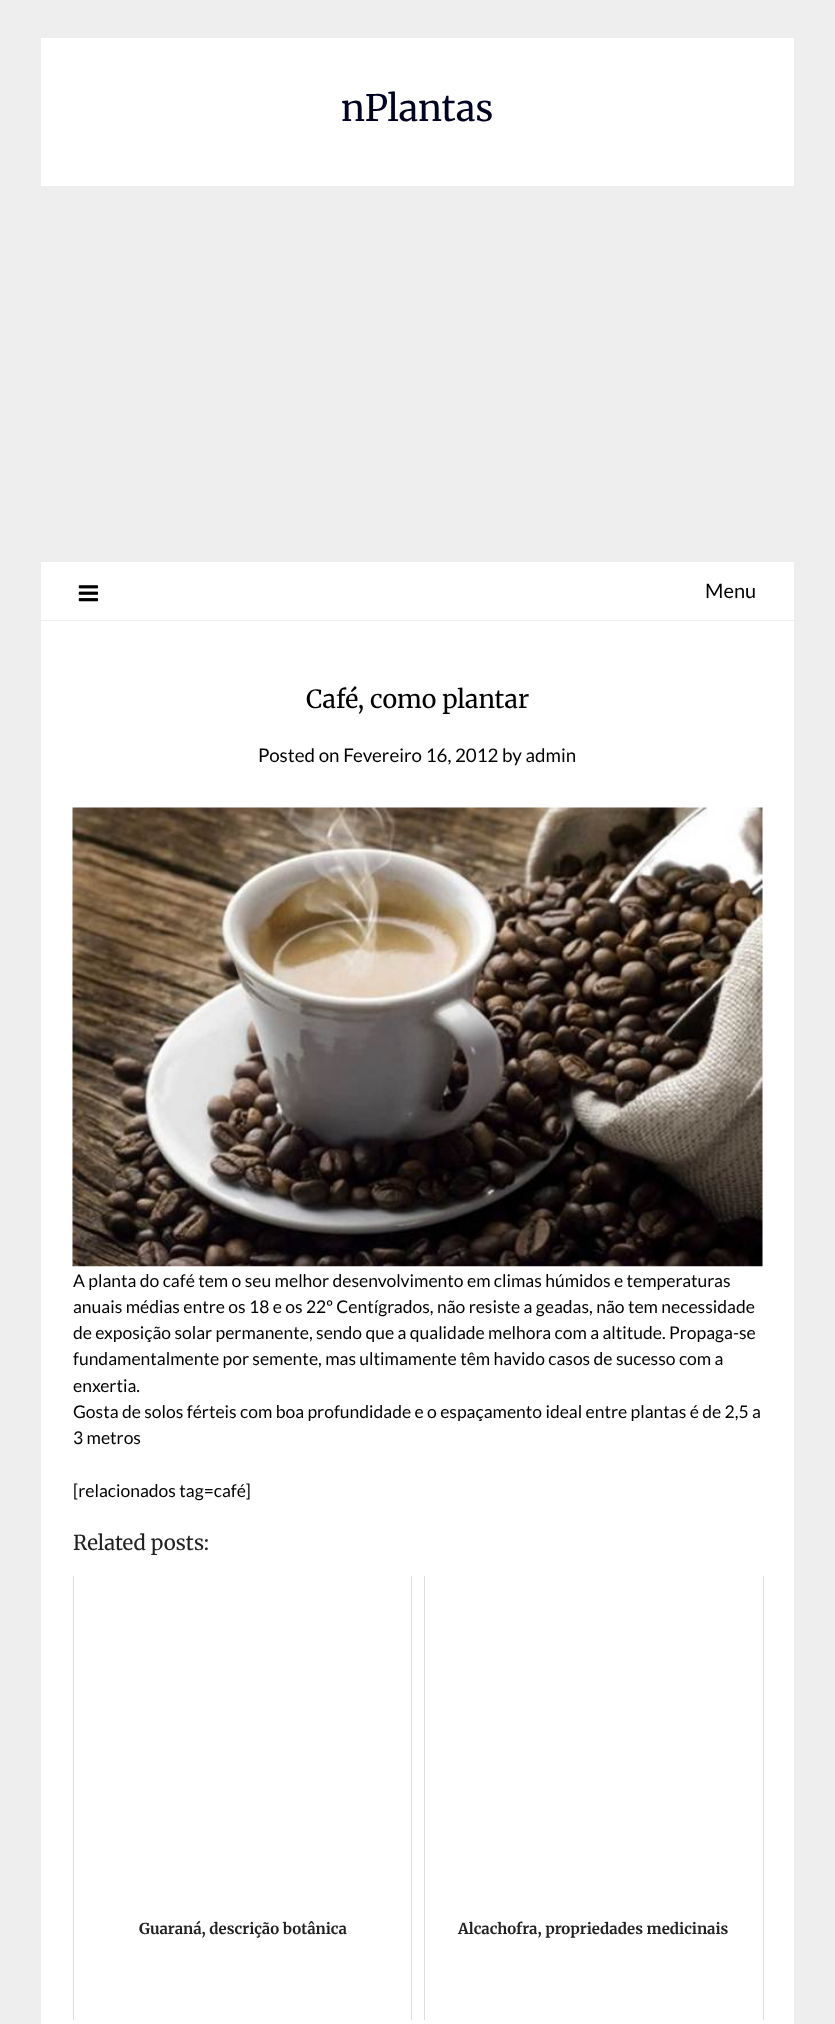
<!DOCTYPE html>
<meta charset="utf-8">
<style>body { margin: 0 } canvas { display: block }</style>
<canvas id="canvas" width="835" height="2024"></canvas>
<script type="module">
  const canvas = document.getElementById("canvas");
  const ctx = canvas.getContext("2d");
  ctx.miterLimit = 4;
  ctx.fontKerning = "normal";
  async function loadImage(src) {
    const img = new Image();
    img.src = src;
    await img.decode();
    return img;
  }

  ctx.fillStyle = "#eeeeee";
  ctx.fillRect(0, 0, 835, 2024);
  ctx.fillStyle = "#ffffff";
  ctx.fillRect(41, 38, 753, 148);
  ctx.font = "36.25px Merriweather";
  ctx.fillStyle = "#000222";
  ctx.fillText("nPlantas", 341, 121);
  ctx.fillStyle = "#ffffff";
  ctx.fillRect(41, 562, 753, 58);
  ctx.drawImage(await loadImage("img1.png"), 78, 585, 21, 17);
  ctx.font = "20px Lato";
  ctx.fillStyle = "#000000";
  ctx.fillText("Menu", 705, 598);
  ctx.fillStyle = "#ffffff";
  ctx.fillRect(41, 621, 753, 1403);
  ctx.font = "25px Merriweather";
  ctx.fillStyle = "#000000";
  ctx.fillText("Café, como plantar", 306, 708);
  ctx.font = "18.75px Lato";
  ctx.fillText("Posted on Fevereiro 16, 2012 by admin", 258, 762);
  ctx.drawImage(await loadImage("img2.png"), 72, 807, 691, 460);
  ctx.font = "17.5px Lato";
  ctx.fillText("A planta do café tem o seu melhor desenvolvimento em climas húmidos e temperaturas", 73, 1287);
  ctx.fillText("anuais médias entre os 18 e os 22º Centígrados, não resiste a geadas, não tem necessidade", 73, 1313);
  ctx.fillText("de exposição solar permanente, sendo que a qualidade melhora com a altitude. Propaga-se", 73, 1339);
  ctx.fillText("fundamentalmente por semente, mas ultimamente têm havido casos de sucesso com a", 73, 1365);
  ctx.fillText("enxertia.", 73, 1392);
  ctx.fillText("Gosta de solos férteis com boa profundidade e o espaçamento ideal entre plantas é de 2,5 a", 73, 1418);
  ctx.fillText("3 metros", 73, 1444);
  ctx.fillText("[relacionados tag=café]", 73, 1497);
  ctx.font = "20.5px Merriweather";
  ctx.fillStyle = "#222222";
  ctx.fillText("Related posts:", 73, 1550);
  ctx.fillStyle = "#dddddd";
  ctx.fillRect(411, 1576, 1, 444);
  ctx.fillRect(73, 1576, 1, 444);
  ctx.font = "bold 15px Merriweather";
  ctx.fillStyle = "#222222";
  ctx.fillText("Guaraná, descrição botânica", 139, 1934);
  ctx.fillStyle = "#dddddd";
  ctx.fillRect(763, 1576, 1, 444);
  ctx.fillRect(424, 1576, 1, 444);
  ctx.fillStyle = "#222222";
  ctx.fillText("Alcachofra, propriedades medicinais", 458, 1934);
</script>
